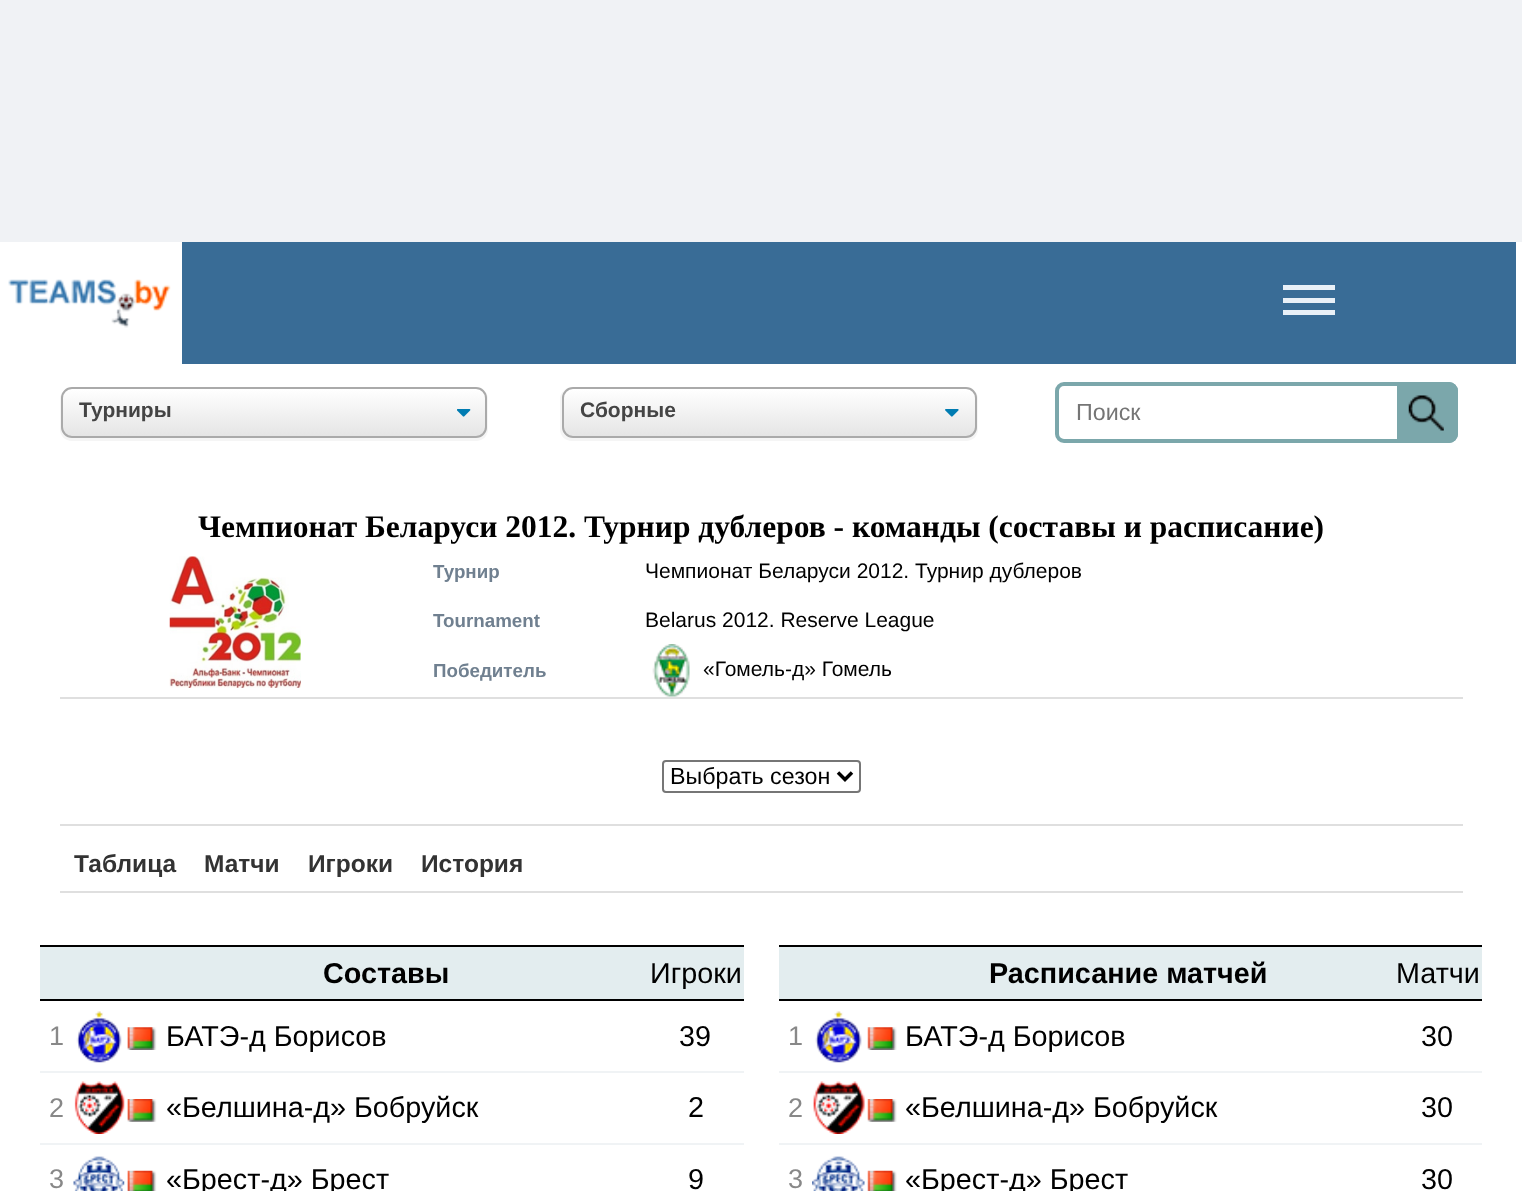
<!DOCTYPE html>
<meta charset="utf-8">
<style>body { margin: 0 } canvas { display: block }</style>
<canvas id="canvas" width="1522" height="1191"></canvas>
<script type="module">
  const canvas = document.getElementById("canvas");
  const ctx = canvas.getContext("2d");
  ctx.miterLimit = 4;
  ctx.fontKerning = "normal";
  async function loadImage(src) {
    const img = new Image();
    img.src = src;
    await img.decode();
    return img;
  }
  let gradient;

  ctx.fillStyle = "#f0f2f5";
  ctx.fillRect(0, 0, 1522, 1191);
  ctx.fillStyle = "#ffffff";
  ctx.fillRect(0, 242, 1522, 949);
  ctx.fillStyle = "#396c96";
  ctx.fillRect(182, 242, 1334, 122);
  ctx.drawImage(await loadImage("img1.png"), 8, 279, 163, 49);
  ctx.fillStyle = "#e9f0f7";
  ctx.fillRect(1283, 285, 52, 5);
  ctx.fillRect(1283, 298, 52, 5);
  ctx.fillRect(1283, 310, 52, 5);
  ctx.fillStyle = "#f5f5f5";
  ctx.beginPath();
  ctx.moveTo(65, 390);
  ctx.bezierCurveTo(62, 392, 60, 395, 60, 399);
  ctx.lineTo(60, 429);
  ctx.bezierCurveTo(60, 436, 65, 441, 72, 441);
  ctx.lineTo(476, 441);
  ctx.bezierCurveTo(483, 441, 488, 436, 488, 429);
  ctx.lineTo(488, 399);
  ctx.bezierCurveTo(488, 394, 485, 391, 482, 388);
  ctx.bezierCurveTo(485, 390, 486, 394, 486, 397);
  ctx.lineTo(486, 427);
  ctx.bezierCurveTo(486, 433, 482, 438, 476, 438);
  ctx.lineTo(72, 438);
  ctx.bezierCurveTo(66, 438, 61, 433, 61, 427);
  ctx.lineTo(61, 397);
  ctx.bezierCurveTo(61, 394, 63, 391, 65, 390);
  ctx.closePath();
  ctx.fill();
  ctx.save();
  ctx.beginPath();
  ctx.roundRect(61, 387, 426, 51, 11);
  ctx.clip();
  gradient = ctx.createLinearGradient(274, 389, 274, 436);
  gradient.addColorStop(0, "#ffffff");
  gradient.addColorStop(1, "#e5e5e5");
  ctx.fillStyle = gradient;
  ctx.fillRect(61, 389, 426, 47);
  ctx.restore();
  ctx.drawImage(await loadImage("img2.png"), 457, 409, 14, 8);
  ctx.beginPath();
  ctx.roundRect(62, 388, 424, 49, 10);
  ctx.strokeStyle = "#aaaaaa";
  ctx.lineWidth = 2;
  ctx.stroke();
  ctx.font = "bold 21px Liberation Sans";
  ctx.fillStyle = "#444444";
  ctx.fillText("Турниры", 79, 417);
  ctx.fillStyle = "#f5f5f5";
  ctx.beginPath();
  ctx.moveTo(568, 388);
  ctx.bezierCurveTo(563, 390, 560, 394, 560, 399);
  ctx.lineTo(560, 429);
  ctx.bezierCurveTo(560, 436, 565, 441, 572, 441);
  ctx.lineTo(966, 441);
  ctx.bezierCurveTo(973, 441, 978, 436, 978, 429);
  ctx.lineTo(978, 399);
  ctx.bezierCurveTo(978, 394, 975, 391, 972, 388);
  ctx.bezierCurveTo(975, 390, 976, 394, 976, 397);
  ctx.lineTo(976, 427);
  ctx.bezierCurveTo(976, 433, 972, 438, 966, 438);
  ctx.lineTo(572, 438);
  ctx.bezierCurveTo(566, 438, 562, 433, 562, 427);
  ctx.lineTo(562, 397);
  ctx.bezierCurveTo(562, 393, 564, 390, 568, 388);
  ctx.closePath();
  ctx.fill();
  ctx.save();
  ctx.beginPath();
  ctx.roundRect(562, 387, 415, 51, 11);
  ctx.clip();
  gradient = ctx.createLinearGradient(769, 389, 769, 436);
  gradient.addColorStop(0, "#ffffff");
  gradient.addColorStop(1, "#e5e5e5");
  ctx.fillStyle = gradient;
  ctx.fillRect(562, 389, 415, 47);
  ctx.restore();
  ctx.drawImage(await loadImage("img3.png"), 945, 409, 14, 8);
  ctx.beginPath();
  ctx.roundRect(563, 388, 413, 49, 10);
  ctx.stroke();
  ctx.fillStyle = "#444444";
  ctx.fillText("Сборные", 580, 417);
  ctx.beginPath();
  ctx.roundRect(1057, 384, 399, 57, 7);
  ctx.strokeStyle = "#7ba7ab";
  ctx.lineWidth = 4;
  ctx.stroke();
  ctx.font = "23.25px Liberation Sans";
  ctx.fillStyle = "#757575";
  ctx.fillText("Поиск", 1076, 420);
  ctx.fillStyle = "#7ba7ab";
  ctx.beginPath();
  ctx.roundRect(1397, 382, 61, 61, [0, 9, 9, 0]);
  ctx.fill();
  ctx.drawImage(await loadImage("img4.png"), 1408, 395, 36, 36);
  ctx.font = "bold 31.5px Liberation Serif";
  ctx.fillStyle = "#000000";
  ctx.fillText("Чемпионат Беларуси 2012. Турнир дублеров - команды (составы и расписание)", 198, 537);
  ctx.drawImage(await loadImage("img5.png"), 169, 556, 132, 132);
  ctx.font = "bold 18.75px Liberation Sans";
  ctx.fillStyle = "#708090";
  ctx.fillText("Турнир", 433, 578);
  ctx.font = "21px Liberation Sans";
  ctx.fillStyle = "#000000";
  ctx.fillText("Чемпионат Беларуси 2012. Турнир дублеров", 645, 578);
  ctx.font = "bold 18.75px Liberation Sans";
  ctx.fillStyle = "#708090";
  ctx.fillText("Tournament", 433, 627);
  ctx.font = "21px Liberation Sans";
  ctx.fillStyle = "#000000";
  ctx.fillText("Belarus 2012. Reserve League", 645, 627);
  ctx.font = "bold 18.75px Liberation Sans";
  ctx.fillStyle = "#708090";
  ctx.fillText("Победитель", 433, 677);
  ctx.drawImage(await loadImage("img6.png"), 652, 644, 38, 53);
  ctx.font = "21px Liberation Sans";
  ctx.fillStyle = "#000000";
  ctx.fillText("«Гомель-д» Гомель", 703, 676);
  ctx.fillStyle = "#dfdfdf";
  ctx.fillRect(60, 697, 1403, 2);
  ctx.beginPath();
  ctx.roundRect(663, 761, 197, 31, 3);
  ctx.strokeStyle = "#767676";
  ctx.lineWidth = 2;
  ctx.stroke();
  ctx.beginPath();
  ctx.moveTo(838, 772.5);
  ctx.lineTo(845, 779.5);
  ctx.lineTo(852, 772.5);
  ctx.strokeStyle = "#000000";
  ctx.lineWidth = 3.5;
  ctx.stroke();
  ctx.font = "23.25px Liberation Sans";
  ctx.fillStyle = "#000000";
  ctx.fillText("Выбрать сезон", 670, 784);
  ctx.fillStyle = "#dfdfdf";
  ctx.fillRect(60, 824, 1403, 2);
  ctx.font = "bold 24.5px Liberation Sans";
  ctx.fillStyle = "#333333";
  ctx.fillText("Таблица", 74, 872);
  ctx.fillText("Матчи", 204, 872);
  ctx.fillText("Игроки", 308, 872);
  ctx.fillText("История", 421, 872);
  ctx.fillStyle = "#dfdfdf";
  ctx.fillRect(60, 891, 1403, 2);
  ctx.fillStyle = "#000000";
  ctx.fillRect(40, 945, 704, 2);
  ctx.fillStyle = "#e3edef";
  ctx.fillRect(40, 947, 704, 52);
  ctx.font = "bold 28.75px Liberation Sans";
  ctx.fillStyle = "#000000";
  ctx.fillText("Составы", 323, 983);
  ctx.font = "28.75px Liberation Sans";
  ctx.fillText("Игроки", 650, 983);
  ctx.fillRect(40, 999, 704, 2);
  ctx.font = "27px Liberation Sans";
  ctx.fillStyle = "#888888";
  ctx.fillText("1", 49, 1045);
  ctx.drawImage(await loadImage("img7.png"), 76, 1011, 46, 52);
  ctx.drawImage(await loadImage("img8.png"), 127, 1027, 30, 23);
  ctx.font = "28.75px Liberation Sans";
  ctx.fillStyle = "#000000";
  ctx.fillText("БАТЭ-д Борисов", 166, 1046);
  ctx.fillText("39", 679, 1046);
  ctx.fillStyle = "#f0f3f5";
  ctx.fillRect(40, 1071, 704, 2);
  ctx.font = "27px Liberation Sans";
  ctx.fillStyle = "#888888";
  ctx.fillText("2", 49, 1117);
  ctx.drawImage(await loadImage("img9.png"), 74, 1081, 51, 53);
  ctx.drawImage(await loadImage("img10.png"), 127, 1099, 30, 23);
  ctx.font = "28.75px Liberation Sans";
  ctx.fillStyle = "#000000";
  ctx.fillText("«Белшина-д» Бобруйск", 166, 1117);
  ctx.fillText("2", 688, 1117);
  ctx.fillStyle = "#f0f3f5";
  ctx.fillRect(40, 1143, 704, 2);
  ctx.font = "27px Liberation Sans";
  ctx.fillStyle = "#888888";
  ctx.fillText("3", 49, 1188);
  ctx.drawImage(await loadImage("img11.png"), 73, 1156, 52, 35);
  ctx.drawImage(await loadImage("img12.png"), 127, 1170, 30, 21);
  ctx.font = "28.75px Liberation Sans";
  ctx.fillStyle = "#000000";
  ctx.fillText("«Брест-д» Брест", 166, 1189);
  ctx.fillText("9", 688, 1189);
  ctx.fillRect(779, 945, 703, 2);
  ctx.fillStyle = "#e3edef";
  ctx.fillRect(779, 947, 703, 52);
  ctx.font = "bold 28.75px Liberation Sans";
  ctx.fillStyle = "#000000";
  ctx.fillText("Расписание матчей", 989, 983);
  ctx.font = "28.75px Liberation Sans";
  ctx.fillText("Матчи", 1396, 983);
  ctx.fillRect(779, 999, 703, 2);
  ctx.font = "27px Liberation Sans";
  ctx.fillStyle = "#888888";
  ctx.fillText("1", 788, 1045);
  ctx.drawImage(await loadImage("img13.png"), 815, 1011, 47, 52);
  ctx.drawImage(await loadImage("img14.png"), 867, 1027, 30, 23);
  ctx.font = "28.75px Liberation Sans";
  ctx.fillStyle = "#000000";
  ctx.fillText("БАТЭ-д Борисов", 905, 1046);
  ctx.fillText("30", 1421, 1046);
  ctx.fillStyle = "#f0f3f5";
  ctx.fillRect(779, 1071, 703, 2);
  ctx.font = "27px Liberation Sans";
  ctx.fillStyle = "#888888";
  ctx.fillText("2", 788, 1117);
  ctx.drawImage(await loadImage("img15.png"), 813, 1081, 52, 53);
  ctx.drawImage(await loadImage("img16.png"), 867, 1099, 30, 23);
  ctx.font = "28.75px Liberation Sans";
  ctx.fillStyle = "#000000";
  ctx.fillText("«Белшина-д» Бобруйск", 905, 1117);
  ctx.fillText("30", 1421, 1117);
  ctx.fillStyle = "#f0f3f5";
  ctx.fillRect(779, 1143, 703, 2);
  ctx.font = "27px Liberation Sans";
  ctx.fillStyle = "#888888";
  ctx.fillText("3", 788, 1188);
  ctx.drawImage(await loadImage("img17.png"), 812, 1156, 53, 35);
  ctx.drawImage(await loadImage("img18.png"), 867, 1170, 30, 21);
  ctx.font = "28.75px Liberation Sans";
  ctx.fillStyle = "#000000";
  ctx.fillText("«Брест-д» Брест", 905, 1189);
  ctx.fillText("30", 1421, 1189);
</script>
